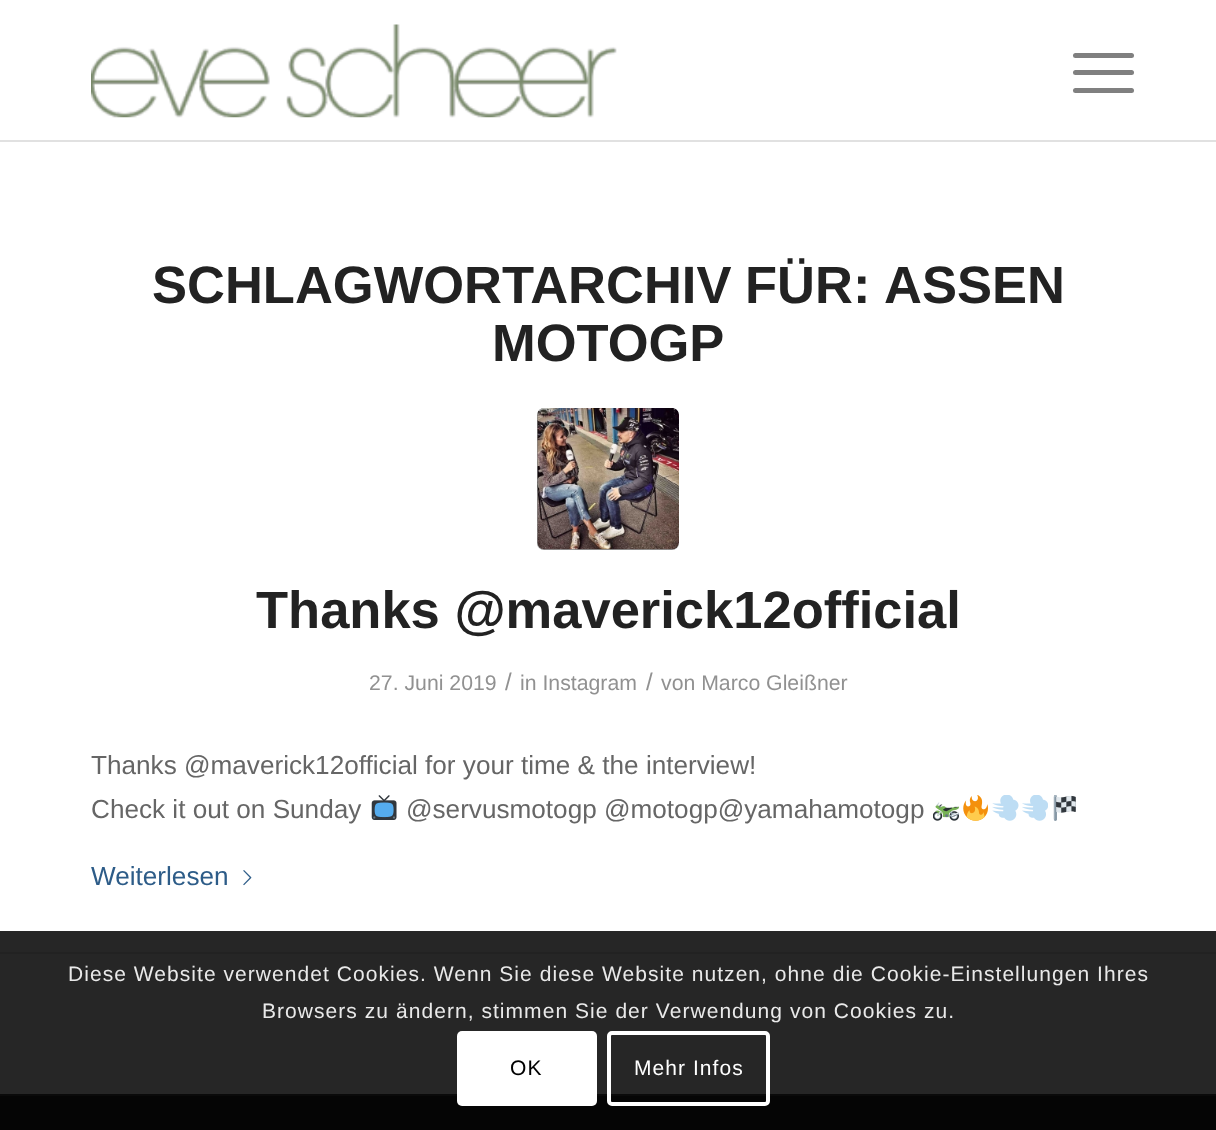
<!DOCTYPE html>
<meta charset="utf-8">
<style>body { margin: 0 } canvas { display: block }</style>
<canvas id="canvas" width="1216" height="1130"></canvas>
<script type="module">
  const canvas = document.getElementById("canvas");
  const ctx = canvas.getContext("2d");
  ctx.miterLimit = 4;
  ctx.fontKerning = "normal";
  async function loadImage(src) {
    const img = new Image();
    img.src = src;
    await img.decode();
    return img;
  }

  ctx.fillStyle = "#ffffff";
  ctx.fillRect(0, 0, 1216, 1130);
  ctx.fillStyle = "#262626";
  ctx.fillRect(0, 931, 1216, 163);
  ctx.fillStyle = "#e1e1e1";
  ctx.fillRect(0, 140, 1216, 2);
  ctx.drawImage(await loadImage("img1.png"), 91, 24, 526, 94);
  ctx.fillStyle = "#808080";
  ctx.beginPath();
  ctx.roundRect(1073, 70, 61, 5, 2.5);
  ctx.fill();
  ctx.beginPath();
  ctx.roundRect(1073, 53, 61, 5, 2.5);
  ctx.fill();
  ctx.beginPath();
  ctx.roundRect(1073, 88, 61, 5, 2.5);
  ctx.fill();
  ctx.wordSpacing = "-1px";
  ctx.font = "bold 52.5px Liberation Sans";
  ctx.fillStyle = "#222222";
  ctx.fillText("SCHLAGWORTARCHIV FÜR:", 152, 303);
  ctx.wordSpacing = "0px";
  ctx.fillText("ASSEN", 884, 303);
  ctx.fillText("MOTOGP", 492, 361);
  ctx.fillStyle = "#919191";
  ctx.beginPath();
  ctx.roundRect(537, 408, 142, 142, 7);
  ctx.fill();
  ctx.drawImage(await loadImage("img2.png"), 537, 408, 142, 142);
  ctx.fillStyle = "#222222";
  ctx.fillText("Thanks @maverick12official", 256, 628);
  ctx.font = "21.25px Liberation Sans";
  ctx.fillStyle = "#919191";
  ctx.fillText("27. Juni 2019", 369, 690);
  ctx.font = "24px Liberation Sans";
  ctx.fillText("/", 505, 690);
  ctx.font = "21.25px Liberation Sans";
  ctx.fillText("in Instagram", 520, 690);
  ctx.font = "24px Liberation Sans";
  ctx.fillText("/", 646, 690);
  ctx.font = "21.25px Liberation Sans";
  ctx.fillText("von Marco Gleißner", 661, 690);
  ctx.font = "26.15px Liberation Sans";
  ctx.fillStyle = "#666666";
  ctx.fillText("Thanks @maverick12official for your time & the interview!", 91, 774);
  ctx.fillText("Check it out on Sunday", 91, 818);
  ctx.drawImage(await loadImage("img3.png"), 371, 795, 26, 25);
  ctx.fillText("@servusmotogp @motogp@yamahamotogp", 406, 818);
  ctx.drawImage(await loadImage("img4.png"), 933, 802, 26, 19);
  ctx.drawImage(await loadImage("img5.png"), 963, 795, 25, 26);
  ctx.drawImage(await loadImage("img6.png"), 992, 795, 27, 26);
  ctx.drawImage(await loadImage("img7.png"), 1022, 795, 26, 26);
  ctx.drawImage(await loadImage("img8.png"), 1053, 795, 23, 26);
  ctx.fillStyle = "#2d5c88";
  ctx.fillText("Weiterlesen", 91, 885);
  ctx.drawImage(await loadImage("img9.png"), 243, 870, 9, 16);
  ctx.fillStyle = "#222222";
  ctx.fillRect(0, 952, 1216, 2);
  ctx.fillStyle = "#050505";
  ctx.fillRect(0, 1096, 1216, 34);
  ctx.fillStyle = "#0a0a0a";
  ctx.fillRect(0, 1094, 1216, 2);
  ctx.letterSpacing = "1.05px";
  ctx.font = "21px Liberation Sans";
  ctx.fillStyle = "#e9e9e9";
  ctx.fillText("Diese Website verwendet Cookies. Wenn Sie diese Website nutzen, ohne die Cookie-Einstellungen Ihres", 68, 981);
  ctx.fillText("Browsers zu ändern, stimmen Sie der Verwendung von Cookies zu.", 262, 1018);
  ctx.fillStyle = "#ffffff";
  ctx.beginPath();
  ctx.roundRect(457, 1031, 140, 75, 5);
  ctx.fill();
  ctx.fillStyle = "#000000";
  ctx.fillText("OK", 510, 1075);
  ctx.beginPath();
  ctx.roundRect(609, 1033, 159, 71, 3);
  ctx.strokeStyle = "#ffffff";
  ctx.lineWidth = 4;
  ctx.stroke();
  ctx.fillStyle = "#ffffff";
  ctx.fillText("Mehr Infos", 634, 1075);
</script>
